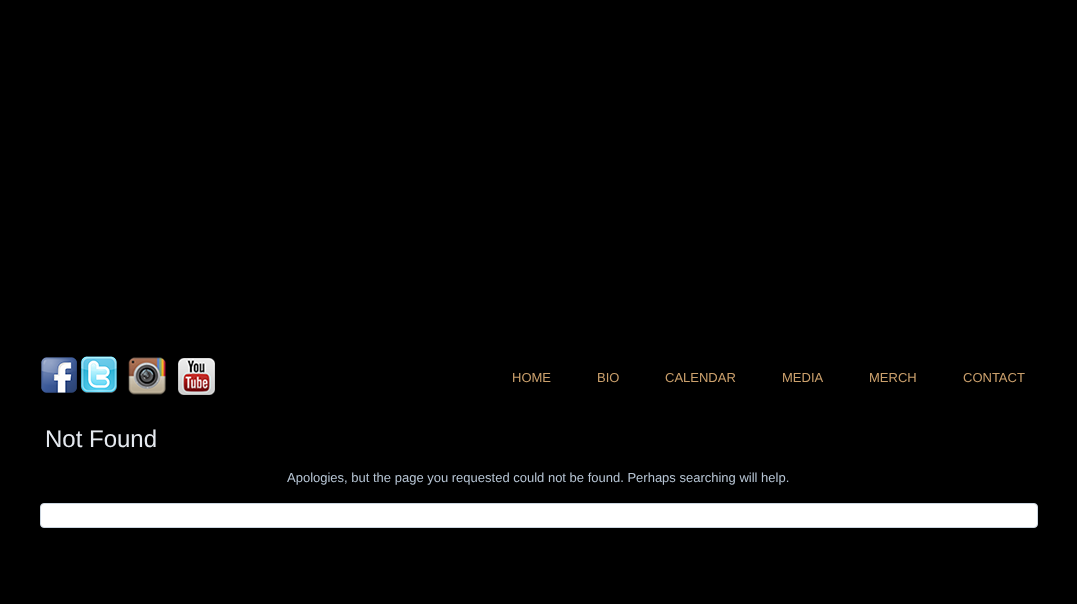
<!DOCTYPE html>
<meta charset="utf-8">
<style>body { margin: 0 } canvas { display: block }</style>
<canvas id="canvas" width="1077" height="604"></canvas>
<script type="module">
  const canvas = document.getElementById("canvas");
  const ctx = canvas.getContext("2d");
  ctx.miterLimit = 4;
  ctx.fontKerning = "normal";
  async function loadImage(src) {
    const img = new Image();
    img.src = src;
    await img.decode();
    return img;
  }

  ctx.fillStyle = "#000000";
  ctx.fillRect(0, 0, 1077, 604);
  ctx.drawImage(await loadImage("img1.png"), 41, 357, 36, 36);
  ctx.drawImage(await loadImage("img2.png"), 80, 356, 37, 37);
  ctx.drawImage(await loadImage("img3.png"), 128, 357, 38, 38);
  ctx.drawImage(await loadImage("img4.png"), 178, 358, 37, 37);
  ctx.font = "13px Liberation Sans";
  ctx.fillStyle = "#cba06c";
  ctx.fillText("HOME", 512, 382);
  ctx.fillText("BIO", 597, 382);
  ctx.fillText("CALENDAR", 665, 382);
  ctx.fillText("MEDIA", 782, 382);
  ctx.fillText("MERCH", 869, 382);
  ctx.fillText("CONTACT", 963, 382);
  ctx.font = "24px Liberation Sans";
  ctx.fillStyle = "#e6eaf0";
  ctx.fillText("Not Found", 45, 447);
  ctx.font = "13px Liberation Sans";
  ctx.fillStyle = "#b6c4d3";
  ctx.fillText("Apologies, but the page you requested could not be found. Perhaps searching will help.", 287, 482);
  ctx.fillStyle = "#ffffff";
  ctx.beginPath();
  ctx.roundRect(40.5, 503.5, 997, 24, 3.5);
  ctx.fill();
  ctx.strokeStyle = "#ccd6e0";
  ctx.stroke();
</script>
